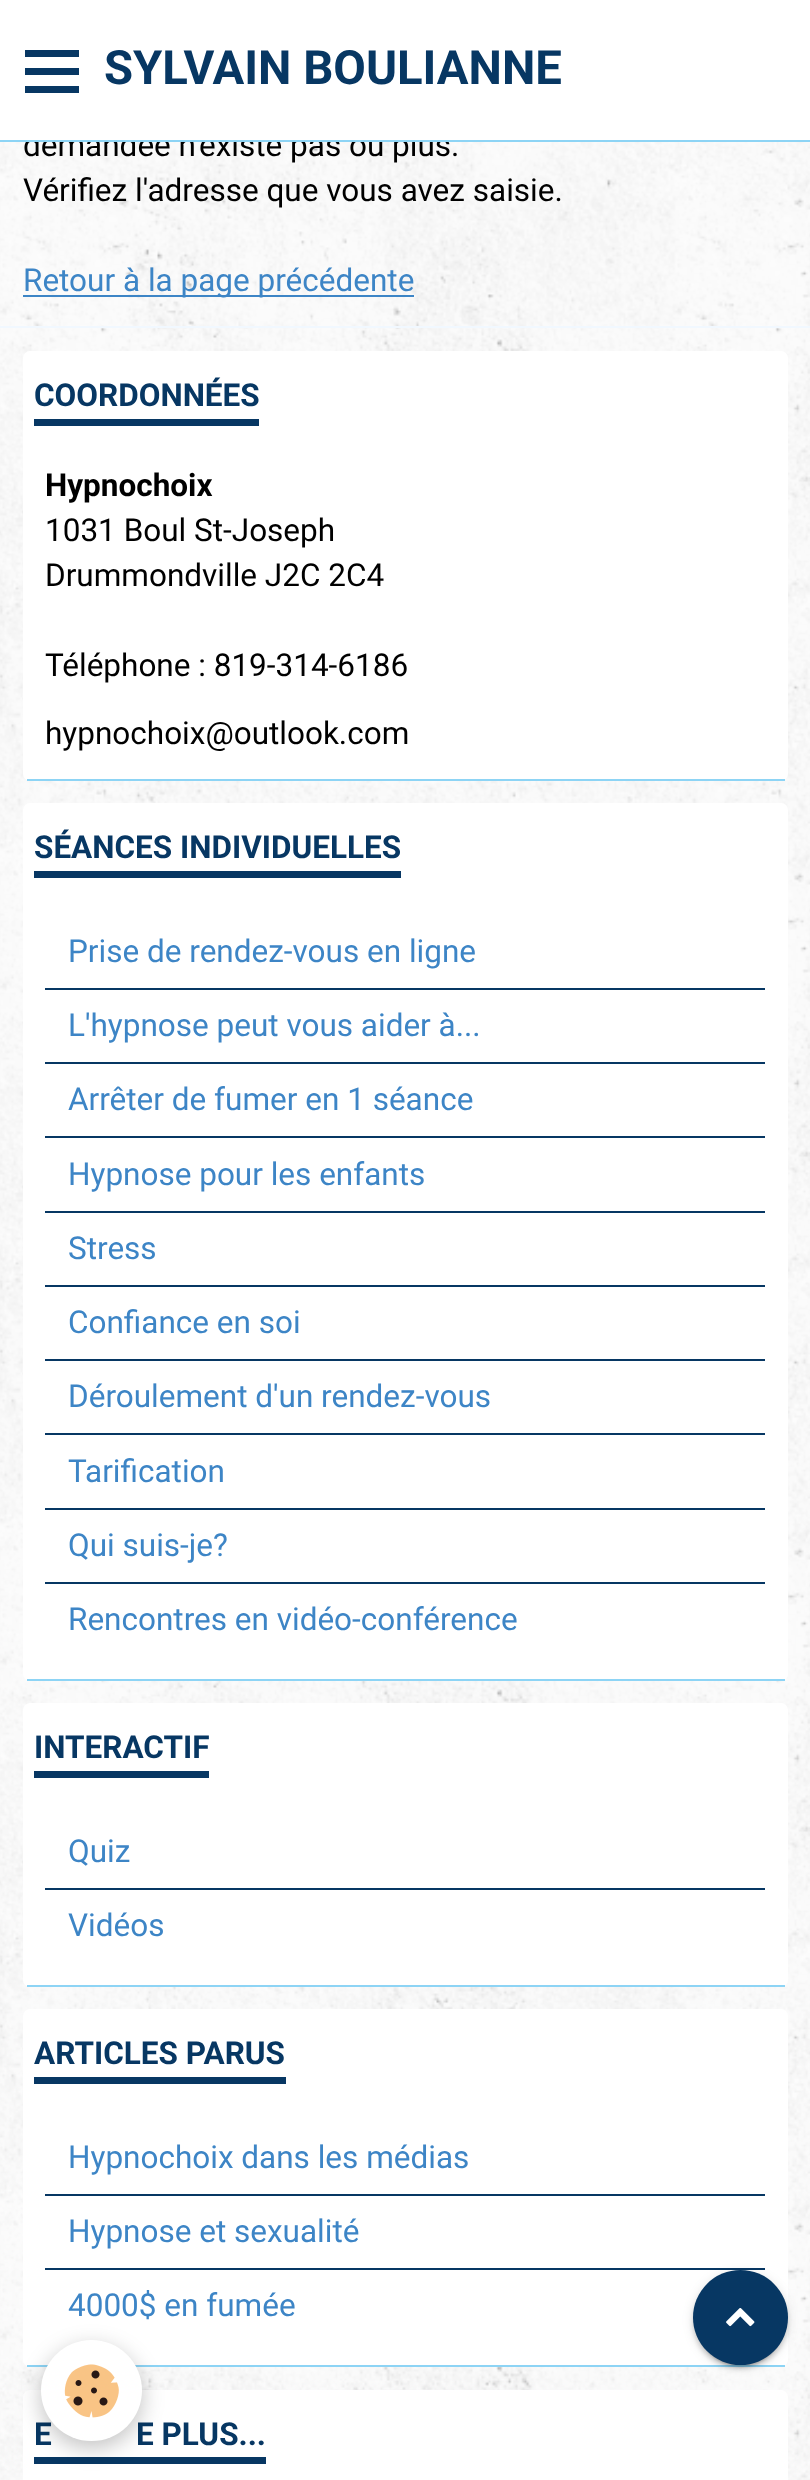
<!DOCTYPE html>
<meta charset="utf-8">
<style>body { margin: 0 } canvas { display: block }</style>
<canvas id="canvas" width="810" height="2480"></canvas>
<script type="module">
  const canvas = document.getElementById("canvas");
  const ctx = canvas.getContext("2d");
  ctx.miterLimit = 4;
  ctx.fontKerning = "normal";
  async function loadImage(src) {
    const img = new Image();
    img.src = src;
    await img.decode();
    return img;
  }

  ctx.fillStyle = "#ffffff";
  ctx.fillRect(0, 0, 810, 2480);
  ctx.drawImage(await loadImage("img1.png"), 0, 142, 810, 2338);
  ctx.font = "31.5px Roboto";
  ctx.fillStyle = "#000000";
  ctx.fillText("demandée n'existe pas ou plus.", 23, 156);
  ctx.fillStyle = "#ffffff";
  ctx.fillRect(27, 132, 420, 8);
  ctx.fillStyle = "#8dd4f5";
  ctx.fillRect(0, 140, 810, 2);
  ctx.fillStyle = "#073763";
  ctx.fillRect(25, 68, 54, 7);
  ctx.fillRect(25, 50, 54, 7);
  ctx.fillRect(25, 86, 54, 7);
  ctx.font = "bold 47.25px Roboto";
  ctx.fillText("SYLVAIN BOULIANNE", 104, 84);
  ctx.font = "31.5px Roboto";
  ctx.fillStyle = "#000000";
  ctx.fillText("Vérifiez l'adresse que vous avez saisie.", 23, 201);
  ctx.fillStyle = "#3d85c6";
  ctx.fillRect(23, 295, 391, 2);
  ctx.fillText("Retour à la page précédente", 23, 291);
  ctx.fillStyle = "#f1f8ff";
  ctx.fillRect(0, 326, 810, 2);
  ctx.fillStyle = "#ffffff";
  ctx.beginPath();
  ctx.roundRect(23, 351, 765, 430, 7);
  ctx.fill();
  ctx.fillStyle = "#8dd4f5";
  ctx.fillRect(27, 779, 758, 2);
  ctx.font = "bold 31.5px Roboto";
  ctx.fillStyle = "#073763";
  ctx.fillText("COORDONNÉES", 34, 406);
  ctx.fillRect(34, 419, 225, 7);
  ctx.fillStyle = "#000000";
  ctx.fillText("Hypnochoix", 45, 496);
  ctx.font = "31.5px Roboto";
  ctx.fillText("1031 Boul St-Joseph", 45, 541);
  ctx.fillText("Drummondville J2C 2C4", 45, 586);
  ctx.fillText("Téléphone : 819-314-6186", 45, 676);
  ctx.fillText("hypnochoix@outlook.com", 45, 744);
  ctx.fillStyle = "#ffffff";
  ctx.beginPath();
  ctx.roundRect(23, 803, 765, 878, 7);
  ctx.fill();
  ctx.fillStyle = "#8dd4f5";
  ctx.fillRect(27, 1679, 758, 2);
  ctx.font = "bold 31.5px Roboto";
  ctx.fillStyle = "#073763";
  ctx.fillText("SÉANCES INDIVIDUELLES", 34, 858);
  ctx.fillRect(34, 871, 367, 7);
  ctx.fillRect(45, 988, 720, 2);
  ctx.font = "31.5px Roboto";
  ctx.fillStyle = "#3d85c6";
  ctx.fillText("Prise de rendez-vous en ligne", 68, 962);
  ctx.fillStyle = "#073763";
  ctx.fillRect(45, 1062, 720, 2);
  ctx.fillStyle = "#3d85c6";
  ctx.fillText("L'hypnose peut vous aider à...", 68, 1036);
  ctx.fillStyle = "#073763";
  ctx.fillRect(45, 1136, 720, 2);
  ctx.fillStyle = "#3d85c6";
  ctx.fillText("Arrêter de fumer en 1 séance", 68, 1110);
  ctx.fillStyle = "#073763";
  ctx.fillRect(45, 1211, 720, 2);
  ctx.fillStyle = "#3d85c6";
  ctx.fillText("Hypnose pour les enfants", 68, 1185);
  ctx.fillStyle = "#073763";
  ctx.fillRect(45, 1285, 720, 2);
  ctx.fillStyle = "#3d85c6";
  ctx.fillText("Stress", 68, 1259);
  ctx.fillStyle = "#073763";
  ctx.fillRect(45, 1359, 720, 2);
  ctx.fillStyle = "#3d85c6";
  ctx.fillText("Confiance en soi", 68, 1333);
  ctx.fillStyle = "#073763";
  ctx.fillRect(45, 1433, 720, 2);
  ctx.fillStyle = "#3d85c6";
  ctx.fillText("Déroulement d'un rendez-vous", 68, 1407);
  ctx.fillStyle = "#073763";
  ctx.fillRect(45, 1508, 720, 2);
  ctx.fillStyle = "#3d85c6";
  ctx.fillText("Tarification", 68, 1482);
  ctx.fillStyle = "#073763";
  ctx.fillRect(45, 1582, 720, 2);
  ctx.fillStyle = "#3d85c6";
  ctx.fillText("Qui suis-je?", 68, 1556);
  ctx.fillText("Rencontres en vidéo-conférence", 68, 1630);
  ctx.fillStyle = "#ffffff";
  ctx.beginPath();
  ctx.roundRect(23, 1703, 765, 284, 7);
  ctx.fill();
  ctx.fillStyle = "#8dd4f5";
  ctx.fillRect(27, 1985, 758, 2);
  ctx.font = "bold 31.5px Roboto";
  ctx.fillStyle = "#073763";
  ctx.fillText("INTERACTIF", 34, 1758);
  ctx.fillRect(34, 1771, 175, 7);
  ctx.fillRect(45, 1888, 720, 2);
  ctx.font = "31.5px Roboto";
  ctx.fillStyle = "#3d85c6";
  ctx.fillText("Quiz", 68, 1862);
  ctx.fillText("Vidéos", 68, 1936);
  ctx.fillStyle = "#ffffff";
  ctx.beginPath();
  ctx.roundRect(23, 2009, 765, 358, 7);
  ctx.fill();
  ctx.fillStyle = "#8dd4f5";
  ctx.fillRect(27, 2365, 758, 2);
  ctx.font = "bold 31.5px Roboto";
  ctx.fillStyle = "#073763";
  ctx.fillText("ARTICLES PARUS", 34, 2064);
  ctx.fillRect(34, 2077, 252, 7);
  ctx.fillRect(45, 2194, 720, 2);
  ctx.font = "31.5px Roboto";
  ctx.fillStyle = "#3d85c6";
  ctx.fillText("Hypnochoix dans les médias", 68, 2168);
  ctx.fillStyle = "#073763";
  ctx.fillRect(45, 2268, 720, 2);
  ctx.fillStyle = "#3d85c6";
  ctx.fillText("Hypnose et sexualité", 68, 2242);
  ctx.fillText("4000$ en fumée", 68, 2316);
  ctx.fillStyle = "#ffffff";
  ctx.beginPath();
  ctx.roundRect(23, 2390, 765, 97, 7);
  ctx.fill();
  ctx.font = "bold 31.5px Roboto";
  ctx.fillStyle = "#073763";
  ctx.fillText("E", 34, 2445);
  ctx.fillText("E PLUS...", 136, 2445);
  ctx.fillRect(34, 2457, 232, 7);
  ctx.fillStyle = "rgba(0, 0, 0, 0.12)";
  ctx.filter = "blur(5.5px)";
  ctx.beginPath();
  ctx.roundRect(693, 2273, 95, 94, 47);
  ctx.fill();
  ctx.filter = "none";
  ctx.fillStyle = "rgba(0, 0, 0, 0.2)";
  ctx.filter = "blur(1px)";
  ctx.beginPath();
  ctx.roundRect(698, 2282, 85, 85, 42.5);
  ctx.fill();
  ctx.filter = "none";
  ctx.fillStyle = "rgba(0, 0, 0, 0.14)";
  ctx.filter = "blur(2px)";
  ctx.beginPath();
  ctx.roundRect(693, 2275, 95, 94, 47);
  ctx.fill();
  ctx.filter = "none";
  ctx.fillStyle = "#073763";
  ctx.beginPath();
  ctx.arc(740.5, 2317.5, 47.5, 0, Math.PI * 2);
  ctx.fill();
  ctx.drawImage(await loadImage("img2.png"), 726, 2308, 29, 19);
  ctx.fillStyle = "rgba(0, 0, 0, 0.24)";
  ctx.filter = "blur(11px)";
  ctx.beginPath();
  ctx.roundRect(41, 2347, 101, 101, 50.5);
  ctx.fill();
  ctx.filter = "none";
  ctx.fillStyle = "#ffffff";
  ctx.beginPath();
  ctx.arc(91.5, 2390.5, 50.5, 0, Math.PI * 2);
  ctx.fill();
  ctx.drawImage(await loadImage("img3.png"), 64, 2364, 55, 54);
</script>
